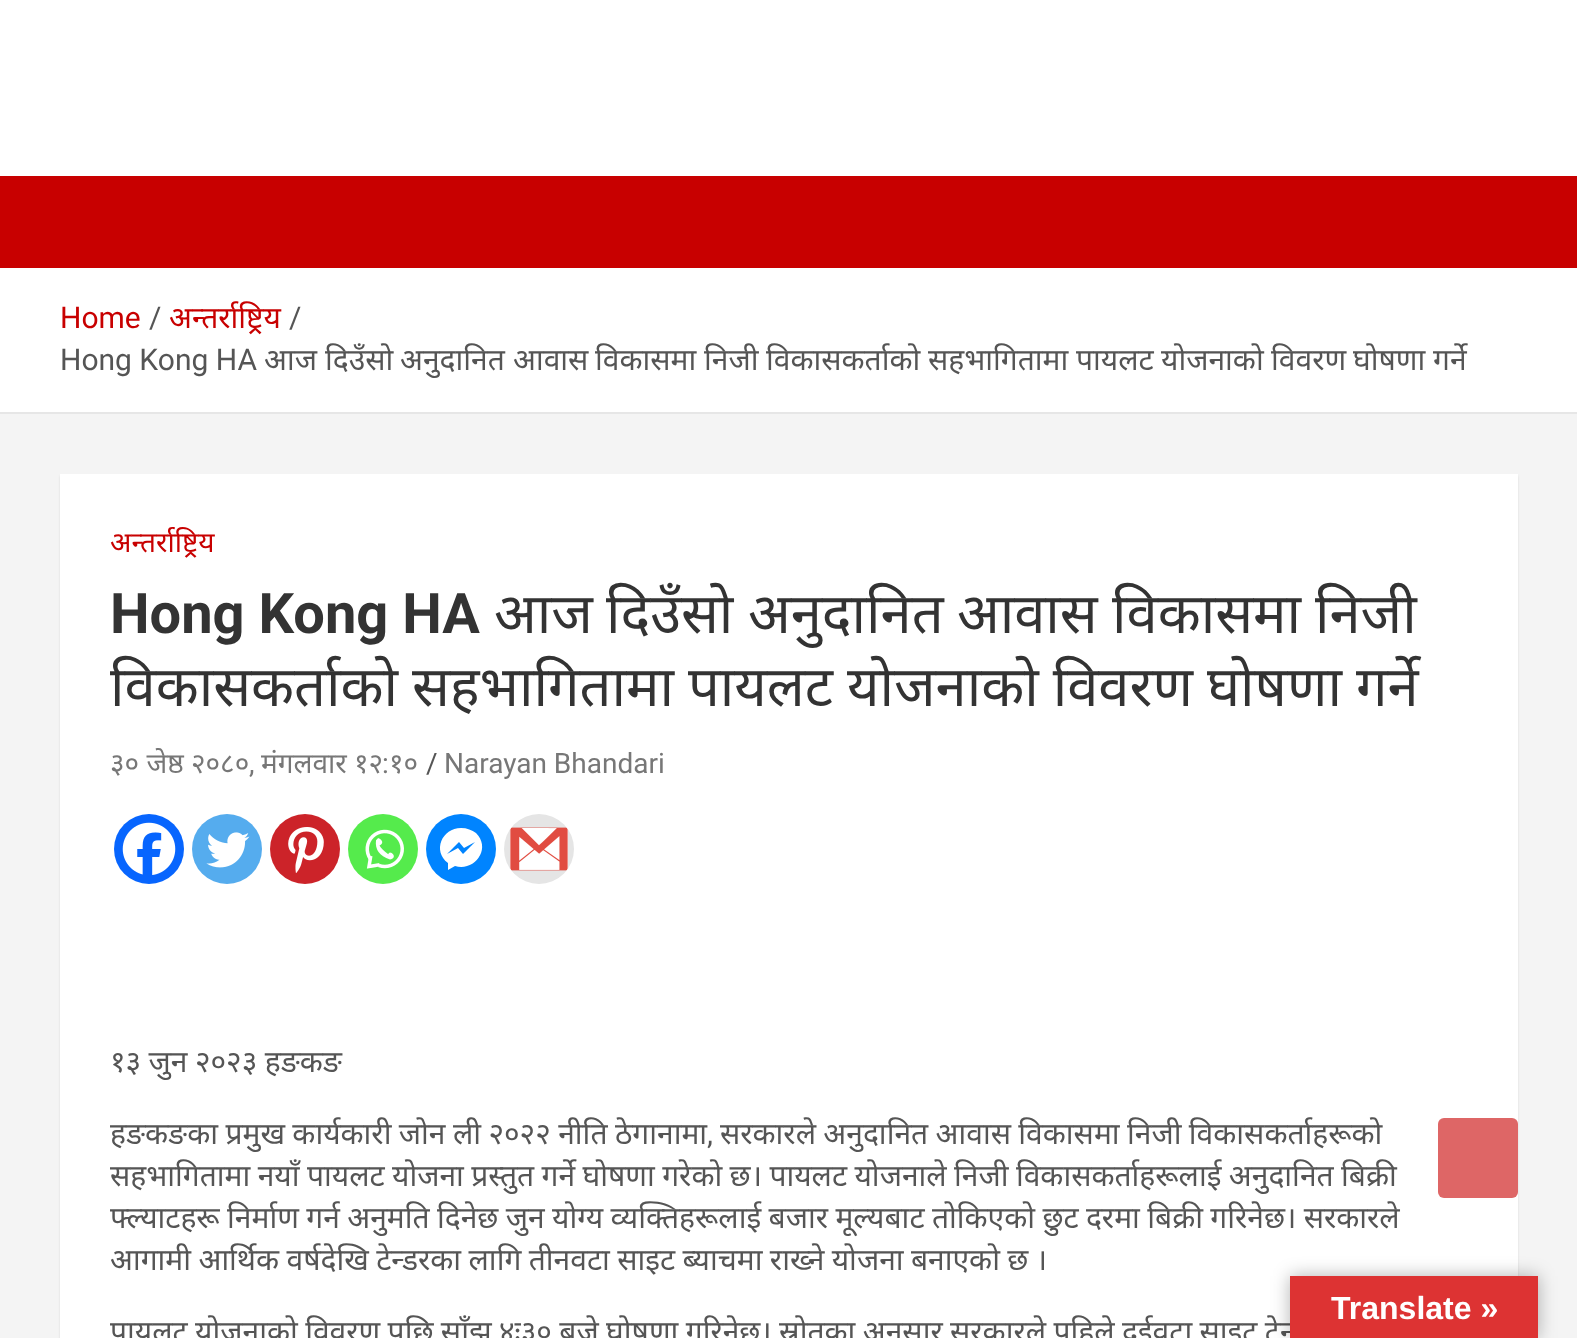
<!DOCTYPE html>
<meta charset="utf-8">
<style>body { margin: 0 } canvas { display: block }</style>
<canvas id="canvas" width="1577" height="1338"></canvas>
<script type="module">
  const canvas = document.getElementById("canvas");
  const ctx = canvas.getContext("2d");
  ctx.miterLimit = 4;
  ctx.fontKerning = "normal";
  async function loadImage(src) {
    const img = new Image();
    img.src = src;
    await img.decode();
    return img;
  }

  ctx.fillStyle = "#f4f4f4";
  ctx.fillRect(0, 0, 1577, 1338);
  ctx.fillStyle = "#ffffff";
  ctx.fillRect(0, 0, 1577, 176);
  ctx.fillStyle = "#c80000";
  ctx.fillRect(0, 176, 1577, 92);
  ctx.fillStyle = "#ffffff";
  ctx.fillRect(0, 268, 1577, 144);
  ctx.fillStyle = "#e6e6e6";
  ctx.fillRect(0, 412, 1577, 2);
  ctx.font = "30px Roboto";
  ctx.fillStyle = "#c80000";
  ctx.fillText("Home", 60, 328);
  ctx.fillStyle = "#555555";
  ctx.fillText("/", 149, 328);
  ctx.font = "30px Noto Sans";
  ctx.fillStyle = "#c80000";
  ctx.fillText("अन्तर्राष्ट्रिय", 169, 328);
  ctx.font = "30px Roboto";
  ctx.fillStyle = "#555555";
  ctx.fillText("/", 289, 328);
  ctx.fillText("Hong Kong HA", 60, 370);
  ctx.font = "30px Noto Sans";
  ctx.fillText("आज", 264, 370);
  ctx.fillText("दिउँसो", 325, 370);
  ctx.fillText("अनुदानित", 400, 370);
  ctx.fillText("आवास", 513, 370);
  ctx.fillText("विकासमा", 595, 370);
  ctx.fillText("निजी", 704, 370);
  ctx.fillText("विकासकर्ताको", 766, 370);
  ctx.fillText("सहभागितामा", 928, 370);
  ctx.fillText("पायलट", 1076, 370);
  ctx.fillText("योजनाको", 1161, 370);
  ctx.fillText("विवरण", 1271, 370);
  ctx.fillText("घोषणा", 1353, 370);
  ctx.fillText("गर्ने", 1433, 370);
  ctx.fillStyle = "rgba(0, 0, 0, 0.1)";
  ctx.filter = "blur(1px)";
  ctx.beginPath();
  ctx.rect(60, 476, 1458, 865);
  ctx.fill();
  ctx.filter = "none";
  ctx.fillStyle = "#ffffff";
  ctx.fillRect(60, 474, 1458, 864);
  ctx.font = "28px Noto Sans";
  ctx.fillStyle = "#c80000";
  ctx.fillText("अन्तर्राष्ट्रिय", 110, 552);
  ctx.font = "bold 56px Roboto";
  ctx.fillStyle = "#333333";
  ctx.fillText("Hong Kong HA", 110, 633);
  ctx.font = "56px Noto Sans";
  ctx.fillText("आज", 494, 633);
  ctx.fillText("दिउँसो", 606, 633);
  ctx.fillText("अनुदानित", 748, 633);
  ctx.fillText("आवास", 957, 633);
  ctx.fillText("विकासमा", 1112, 633);
  ctx.fillText("निजी", 1315, 633);
  ctx.wordSpacing = "-0.5px";
  ctx.fillText("विकासकर्ताको सहभागितामा पायलट योजनाको विवरण घोषणा गर्ने", 110, 706);
  ctx.wordSpacing = "0px";
  ctx.font = "28px Noto Sans";
  ctx.fillStyle = "#777777";
  ctx.fillText("३० जेष्ठ २०८०", 110, 773);
  ctx.font = "28px Roboto";
  ctx.fillText(",", 249, 773);
  ctx.font = "28px Noto Sans";
  ctx.fillText("मंगलवार १२", 261, 773);
  ctx.font = "28px Roboto";
  ctx.fillText(":", 382, 773);
  ctx.font = "28px Noto Sans";
  ctx.fillText("१०", 389, 773);
  ctx.font = "28px Roboto";
  ctx.fillStyle = "#555555";
  ctx.fillText("/", 426, 773);
  ctx.fillStyle = "#777777";
  ctx.fillText("Narayan Bhandari", 444, 773);
  ctx.fillStyle = "#0765fe";
  ctx.beginPath();
  ctx.arc(149, 849, 35, 0, Math.PI * 2);
  ctx.fill();
  ctx.drawImage(await loadImage("img1.png"), 122, 822, 54, 53);
  ctx.fillStyle = "#55acee";
  ctx.beginPath();
  ctx.arc(227, 849, 35, 0, Math.PI * 2);
  ctx.fill();
  ctx.drawImage(await loadImage("img2.png"), 206, 832, 44, 36);
  ctx.fillStyle = "#cc2329";
  ctx.beginPath();
  ctx.arc(305, 849, 35, 0, Math.PI * 2);
  ctx.fill();
  ctx.drawImage(await loadImage("img3.png"), 288, 827, 36, 46);
  ctx.fillStyle = "#55eb4c";
  ctx.beginPath();
  ctx.arc(383, 849, 35, 0, Math.PI * 2);
  ctx.fill();
  ctx.drawImage(await loadImage("img4.png"), 365, 829, 39, 40);
  ctx.fillStyle = "#0084ff";
  ctx.beginPath();
  ctx.arc(461, 849, 35, 0, Math.PI * 2);
  ctx.fill();
  ctx.fillStyle = "#ffffff";
  ctx.beginPath();
  ctx.moveTo(461, 828);
  ctx.bezierCurveTo(442, 828, 432, 851, 448, 863);
  ctx.lineTo(448, 870);
  ctx.lineTo(455, 866);
  ctx.bezierCurveTo(474, 872, 492, 849, 476, 833);
  ctx.bezierCurveTo(472, 830, 467, 828, 461, 828);
  ctx.closePath();
  ctx.moveTo(463, 854);
  ctx.lineTo(458, 848);
  ctx.lineTo(447, 854);
  ctx.lineTo(459, 842);
  ctx.lineTo(464, 848);
  ctx.lineTo(475, 842);
  ctx.closePath();
  ctx.fill();
  ctx.fillStyle = "#e5e5e5";
  ctx.beginPath();
  ctx.arc(539, 849, 35, 0, Math.PI * 2);
  ctx.fill();
  ctx.drawImage(await loadImage("img5.png"), 510, 827, 58, 44);
  ctx.wordSpacing = "-0.4px";
  ctx.font = "30px Noto Sans";
  ctx.fillStyle = "#555555";
  ctx.fillText("१३ जुन २०२३ हङकङ", 110, 1072);
  ctx.fillText("हङकङका प्रमुख कार्यकारी जोन ली २०२२ नीति ठेगानामा", 110, 1144);
  ctx.wordSpacing = "0px";
  ctx.font = "30px Roboto";
  ctx.fillText(",", 707, 1144);
  ctx.wordSpacing = "-0.4px";
  ctx.font = "30px Noto Sans";
  ctx.fillText("सरकारले अनुदानित आवास विकासमा निजी विकासकर्ताहरूको", 720, 1144);
  ctx.fillText("सहभागितामा नयाँ पायलट योजना प्रस्तुत गर्ने घोषणा गरेको छ। पायलट योजनाले निजी विकासकर्ताहरूलाई अनुदानित बिक्री", 110, 1186);
  ctx.fillText("फ्ल्याटहरू निर्माण गर्न अनुमति दिनेछ जुन योग्य व्यक्तिहरूलाई बजार मूल्यबाट तोकिएको छुट दरमा बिक्री गरिनेछ। सरकारले", 110, 1228);
  ctx.fillText("आगामी आर्थिक वर्षदेखि टेन्डरका लागि तीनवटा साइट ब्याचमा राख्ने योजना बनाएको छ ।", 110, 1270);
  ctx.fillText("पायलट योजनाको विवरण पछि साँझ ४ः३० बजे घोषणा गरिनेछ। स्रोतका अनुसार सरकारले पहिले दुईवटा साइट टेन्", 110, 1342);
  ctx.fillStyle = "#de6666";
  ctx.beginPath();
  ctx.roundRect(1438, 1118, 80, 80, 6);
  ctx.fill();
  ctx.fillStyle = "rgba(0, 0, 0, 0.3)";
  ctx.filter = "blur(9px)";
  ctx.beginPath();
  ctx.rect(1290, 1276, 248, 62);
  ctx.fill();
  ctx.filter = "none";
  ctx.fillStyle = "#dd3333";
  ctx.fillRect(1290, 1276, 248, 62);
  ctx.wordSpacing = "0px";
  ctx.font = "bold 32px Liberation Sans";
  ctx.fillStyle = "#ffffff";
  ctx.fillText("Translate »", 1331, 1319);
</script>
